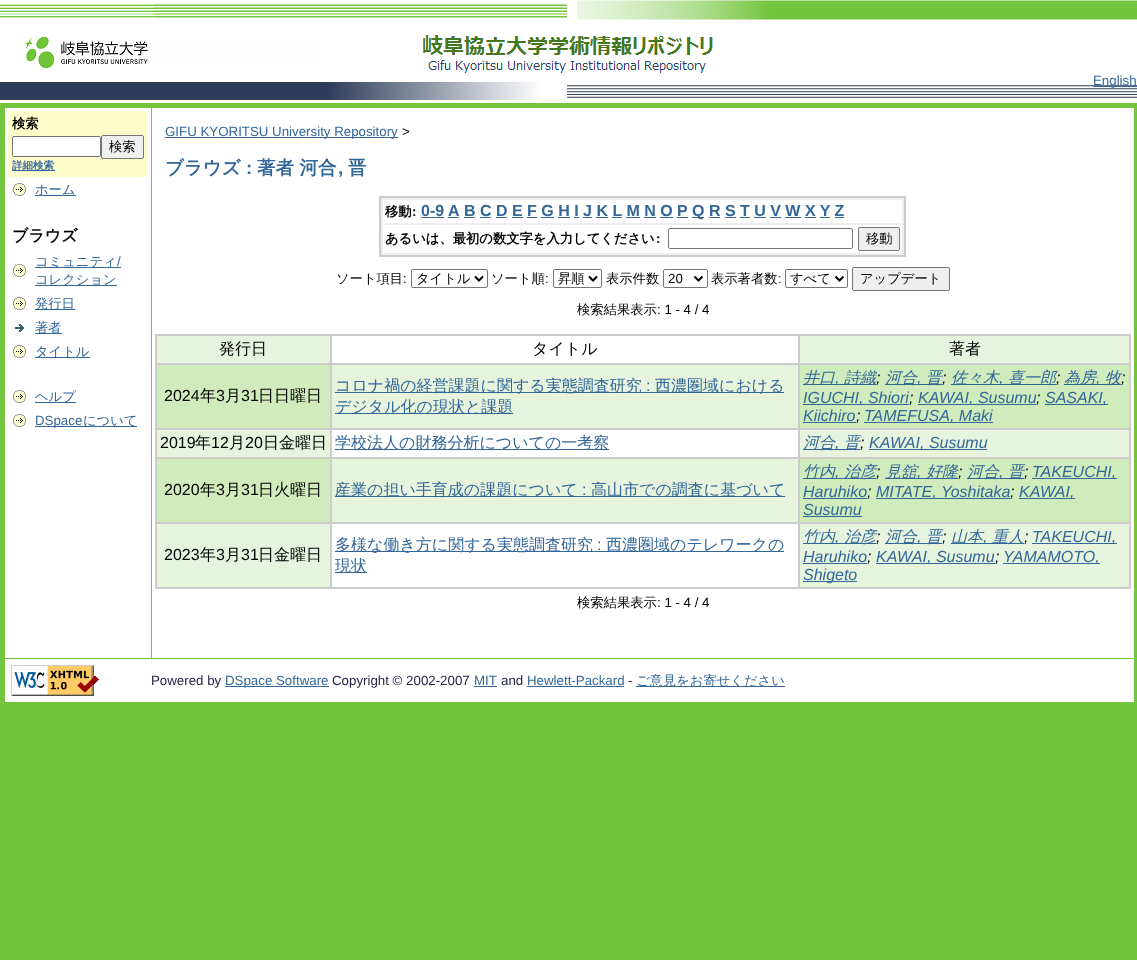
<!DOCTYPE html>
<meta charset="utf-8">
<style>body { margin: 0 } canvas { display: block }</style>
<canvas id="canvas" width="1137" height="960"></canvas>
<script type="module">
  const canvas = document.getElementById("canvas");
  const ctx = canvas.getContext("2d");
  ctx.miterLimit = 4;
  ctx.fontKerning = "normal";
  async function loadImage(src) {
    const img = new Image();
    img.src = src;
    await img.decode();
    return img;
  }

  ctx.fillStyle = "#72c53c";
  ctx.fillRect(0, 0, 1137, 960);
  ctx.fillStyle = "#ffffff";
  ctx.fillRect(0, 98, 1137, 5);
  ctx.drawImage(await loadImage("img1.png"), 0, 0, 154, 100);
  ctx.drawImage(await loadImage("img2.png"), 154, 0, 167, 100);
  ctx.drawImage(await loadImage("img3.png"), 321, 0, 493, 100);
  ctx.drawImage(await loadImage("img4.png"), 814, 0, 279, 98);
  ctx.drawImage(await loadImage("img5.png"), 1093, 0, 44, 98);
  ctx.fillStyle = "#336699";
  ctx.fillRect(1093, 86, 44, 1);
  ctx.font = "13.3px Liberation Sans";
  ctx.fillText("English", 1093, 85);
  ctx.fillStyle = "#ffffff";
  ctx.fillRect(5, 108, 146, 550);
  ctx.fillStyle = "#fefecd";
  ctx.fillRect(8, 111, 140, 66);
  ctx.font = "bold 13.3px WenQuanYi Zen Hei";
  ctx.fillStyle = "#000000";
  ctx.fillText("検索", 12, 128);
  ctx.fillStyle = "#ffffff";
  ctx.beginPath();
  ctx.roundRect(12.5, 136.5, 88, 20, 1.5);
  ctx.fill();
  ctx.strokeStyle = "#767676";
  ctx.stroke();
  ctx.fillStyle = "#efefef";
  ctx.beginPath();
  ctx.roundRect(101.5, 135.5, 42, 23, 1.5);
  ctx.fill();
  ctx.stroke();
  ctx.font = "500 13.3px WenQuanYi Zen Hei";
  ctx.fillStyle = "#000000";
  ctx.fillText("検索", 109, 151);
  ctx.fillStyle = "#336699";
  ctx.fillRect(12, 170, 43, 1);
  ctx.font = "bold 10.5px WenQuanYi Zen Hei";
  ctx.fillText("詳細検索", 12, 169);
  ctx.drawImage(await loadImage("img6.png"), 13, 183, 13, 13);
  ctx.fillRect(35, 195, 41, 1);
  ctx.font = "500 13.3px WenQuanYi Zen Hei";
  ctx.fillText("ホーム", 35, 194);
  ctx.font = "bold 16px WenQuanYi Zen Hei";
  ctx.fillStyle = "#000000";
  ctx.fillText("ブラウズ", 12, 241);
  ctx.drawImage(await loadImage("img6.png"), 13, 264, 13, 13);
  ctx.fillStyle = "#336699";
  ctx.fillRect(35, 267, 86, 1);
  ctx.font = "500 13.3px WenQuanYi Zen Hei";
  ctx.fillText("コミュニティ", 35, 266);
  ctx.font = "13.3px Liberation Sans";
  ctx.fillText("/", 117, 266);
  ctx.fillRect(35, 285, 82, 1);
  ctx.font = "500 13.3px WenQuanYi Zen Hei";
  ctx.fillText("コレクション", 35, 284);
  ctx.drawImage(await loadImage("img6.png"), 13, 297, 13, 13);
  ctx.fillRect(35, 309, 40, 1);
  ctx.fillText("発行日", 35, 308);
  ctx.drawImage(await loadImage("img7.png"), 15, 324, 9, 8);
  ctx.fillRect(35, 333, 27, 1);
  ctx.fillText("著者", 35, 332);
  ctx.drawImage(await loadImage("img6.png"), 13, 345, 13, 13);
  ctx.fillRect(35, 357, 55, 1);
  ctx.fillText("タイトル", 35, 356);
  ctx.drawImage(await loadImage("img6.png"), 13, 390, 13, 13);
  ctx.fillRect(35, 402, 41, 1);
  ctx.fillText("ヘルプ", 35, 401);
  ctx.drawImage(await loadImage("img6.png"), 13, 414, 13, 13);
  ctx.fillRect(35, 426, 102, 1);
  ctx.font = "13.3px Liberation Sans";
  ctx.fillText("DSpace", 35, 425);
  ctx.font = "500 13.3px WenQuanYi Zen Hei";
  ctx.fillText("について", 83, 425);
  ctx.fillStyle = "#ffffff";
  ctx.fillRect(152, 108, 982, 550);
  ctx.fillStyle = "#336699";
  ctx.fillRect(165, 137, 233, 1);
  ctx.font = "13.3px Liberation Sans";
  ctx.fillText("GIFU KYORITSU University Repository", 165, 136);
  ctx.fillStyle = "#000000";
  ctx.fillText(">", 402, 136);
  ctx.font = "bold 18.5px WenQuanYi Zen Hei";
  ctx.fillStyle = "#336699";
  ctx.fillText("ブラウズ", 165, 174);
  ctx.font = "bold 18.5px Liberation Sans";
  ctx.fillText(":", 246, 174);
  ctx.font = "bold 18.5px WenQuanYi Zen Hei";
  ctx.fillText("著者 河合", 257, 174);
  ctx.font = "bold 18.5px Liberation Sans";
  ctx.fillText(",", 338, 174);
  ctx.font = "bold 18.5px WenQuanYi Zen Hei";
  ctx.fillText("晋", 348, 174);
  ctx.fillStyle = "#cccccc";
  ctx.fillRect(379, 196, 527, 61);
  ctx.fillStyle = "#eeeeee";
  ctx.fillRect(381, 198, 523, 57);
  ctx.fillStyle = "#ffffff";
  ctx.fillRect(383, 200, 519, 23);
  ctx.font = "bold 13.3px WenQuanYi Zen Hei";
  ctx.fillStyle = "#000000";
  ctx.fillText("移動", 385, 216);
  ctx.font = "bold 13.3px Liberation Sans";
  ctx.fillText(":", 412, 216);
  ctx.font = "bold 16px Liberation Sans";
  ctx.fillStyle = "#336699";
  ctx.fillText("0-9 A", 421, 216);
  ctx.fillRect(421, 217, 23, 1);
  ctx.fillText("B C D E F G H I J K L M N O P", 464, 216);
  ctx.fillRect(464, 217, 11, 1);
  ctx.fillRect(692, 217, 12, 1);
  ctx.fillText("Q R S T U V W X Y Z", 692, 216);
  ctx.fillRect(448, 217, 11, 1);
  ctx.fillRect(480, 217, 11, 1);
  ctx.fillRect(496, 217, 11, 1);
  ctx.fillRect(512, 217, 11, 1);
  ctx.fillRect(527, 217, 10, 1);
  ctx.fillRect(541, 217, 13, 1);
  ctx.fillRect(558, 217, 12, 1);
  ctx.fillRect(574, 217, 5, 1);
  ctx.fillRect(583, 217, 9, 1);
  ctx.fillRect(596, 217, 12, 1);
  ctx.fillRect(612, 217, 10, 1);
  ctx.fillRect(626, 217, 14, 1);
  ctx.fillRect(644, 217, 12, 1);
  ctx.fillRect(660, 217, 13, 1);
  ctx.fillRect(677, 217, 11, 1);
  ctx.fillRect(709, 217, 11, 1);
  ctx.fillRect(725, 217, 11, 1);
  ctx.fillRect(740, 217, 10, 1);
  ctx.fillRect(754, 217, 12, 1);
  ctx.fillRect(770, 217, 11, 1);
  ctx.fillRect(785, 217, 16, 1);
  ctx.fillRect(805, 217, 11, 1);
  ctx.fillRect(820, 217, 10, 1);
  ctx.fillRect(835, 217, 9, 1);
  ctx.fillStyle = "#ffffff";
  ctx.fillRect(383, 225, 519, 28);
  ctx.font = "bold 13.3px WenQuanYi Zen Hei";
  ctx.fillStyle = "#000000";
  ctx.fillText("あるいは、最初の数文字を入力してください", 385, 243);
  ctx.font = "bold 13.3px Liberation Sans";
  ctx.fillText(":", 656, 243);
  ctx.beginPath();
  ctx.roundRect(668.5, 228.5, 184, 20, 1.5);
  ctx.stroke();
  ctx.fillStyle = "#efefef";
  ctx.beginPath();
  ctx.roundRect(858.5, 227.5, 41, 23, 1.5);
  ctx.fill();
  ctx.stroke();
  ctx.font = "500 13.3px WenQuanYi Zen Hei";
  ctx.fillStyle = "#000000";
  ctx.fillText("移動", 866, 243);
  ctx.fillText("ソート項目", 336, 283);
  ctx.font = "13.3px Liberation Sans";
  ctx.fillText(":", 403, 283);
  ctx.beginPath();
  ctx.roundRect(411.5, 269.5, 76, 18, 1.5);
  ctx.stroke();
  ctx.beginPath();
  ctx.moveTo(475, 276.5);
  ctx.lineTo(479, 280.5);
  ctx.lineTo(483, 276.5);
  ctx.strokeStyle = "#000000";
  ctx.lineWidth = 2;
  ctx.stroke();
  ctx.font = "500 13.3px WenQuanYi Zen Hei";
  ctx.fillText("タイトル", 416, 283);
  ctx.fillText("ソート順", 491, 283);
  ctx.font = "13.3px Liberation Sans";
  ctx.fillText(":", 545, 283);
  ctx.beginPath();
  ctx.roundRect(553.5, 269.5, 48, 18, 1.5);
  ctx.strokeStyle = "#767676";
  ctx.lineWidth = 1;
  ctx.stroke();
  ctx.beginPath();
  ctx.moveTo(589, 276.5);
  ctx.lineTo(593, 280.5);
  ctx.lineTo(597, 276.5);
  ctx.strokeStyle = "#000000";
  ctx.lineWidth = 2;
  ctx.stroke();
  ctx.font = "500 13.3px WenQuanYi Zen Hei";
  ctx.fillText("昇順", 558, 283);
  ctx.fillText("表示件数", 606, 283);
  ctx.beginPath();
  ctx.roundRect(663.5, 269.5, 44, 18, 1.5);
  ctx.strokeStyle = "#767676";
  ctx.lineWidth = 1;
  ctx.stroke();
  ctx.beginPath();
  ctx.moveTo(694.5, 276.5);
  ctx.lineTo(698.5, 280.5);
  ctx.lineTo(702.5, 276.5);
  ctx.strokeStyle = "#000000";
  ctx.lineWidth = 2;
  ctx.stroke();
  ctx.font = "13.3px Liberation Sans";
  ctx.fillText("20", 668, 283);
  ctx.font = "500 13.3px WenQuanYi Zen Hei";
  ctx.fillText("表示著者数", 711, 283);
  ctx.font = "13.3px Liberation Sans";
  ctx.fillText(":", 778, 283);
  ctx.beginPath();
  ctx.roundRect(785.5, 269.5, 62, 18, 1.5);
  ctx.strokeStyle = "#767676";
  ctx.lineWidth = 1;
  ctx.stroke();
  ctx.beginPath();
  ctx.moveTo(835.5, 276.5);
  ctx.lineTo(839.5, 280.5);
  ctx.lineTo(843.5, 276.5);
  ctx.strokeStyle = "#000000";
  ctx.lineWidth = 2;
  ctx.stroke();
  ctx.font = "500 13.3px WenQuanYi Zen Hei";
  ctx.fillText("すべて", 790, 283);
  ctx.fillStyle = "#efefef";
  ctx.beginPath();
  ctx.roundRect(852.5, 267.5, 97, 23, 1.5);
  ctx.fill();
  ctx.strokeStyle = "#767676";
  ctx.lineWidth = 1;
  ctx.stroke();
  ctx.fillStyle = "#000000";
  ctx.fillText("アップデート", 860, 283);
  ctx.fillText("検索結果表示", 577, 314);
  ctx.font = "13.3px Liberation Sans";
  ctx.fillText(": 1 - 4 / 4", 657, 314);
  ctx.fillStyle = "#cccccc";
  ctx.fillRect(155, 334, 976, 255);
  ctx.fillStyle = "#e7f4dd";
  ctx.fillRect(157, 336, 173, 27);
  ctx.font = "500 16px WenQuanYi Zen Hei";
  ctx.fillStyle = "#000000";
  ctx.fillText("発行日", 219, 354);
  ctx.fillStyle = "#ffffff";
  ctx.fillRect(332, 336, 466, 27);
  ctx.fillStyle = "#000000";
  ctx.fillText("タイトル", 532, 354);
  ctx.fillStyle = "#e7f4dd";
  ctx.fillRect(800, 336, 329, 27);
  ctx.fillStyle = "#000000";
  ctx.fillText("著者", 949, 354);
  ctx.fillStyle = "#d0ecbd";
  ctx.fillRect(157, 365, 173, 63);
  ctx.font = "16px Liberation Sans";
  ctx.fillStyle = "#000000";
  ctx.fillText("2024", 164, 401);
  ctx.font = "500 16px WenQuanYi Zen Hei";
  ctx.fillText("年", 200, 401);
  ctx.font = "16px Liberation Sans";
  ctx.fillText("3", 216, 401);
  ctx.font = "500 16px WenQuanYi Zen Hei";
  ctx.fillText("月", 225, 401);
  ctx.font = "16px Liberation Sans";
  ctx.fillText("31", 241, 401);
  ctx.font = "500 16px WenQuanYi Zen Hei";
  ctx.fillText("日日曜日", 258, 401);
  ctx.fillStyle = "#e7f4dd";
  ctx.fillRect(332, 365, 466, 63);
  ctx.fillStyle = "#336699";
  ctx.fillRect(335, 392, 449, 1);
  ctx.fillText("コロナ禍の経営課題に関する実態調査研究", 335, 391);
  ctx.font = "16px Liberation Sans";
  ctx.fillText(":", 646, 391);
  ctx.font = "500 16px WenQuanYi Zen Hei";
  ctx.fillText("西濃圏域における", 655, 391);
  ctx.fillRect(335, 413, 178, 1);
  ctx.fillText("デジタル化の現状と課題", 335, 412);
  ctx.fillStyle = "#d0ecbd";
  ctx.fillRect(800, 365, 329, 63);
  ctx.fillStyle = "#336699";
  ctx.fillRect(803, 384, 73, 1);
  ctx.font = "italic 500 16px WenQuanYi Zen Hei";
  ctx.fillText("井口", 803, 383);
  ctx.fillText("詩織", 844, 383);
  ctx.fillRect(885, 384, 57, 1);
  ctx.fillText("河合", 885, 383);
  ctx.fillText("晋", 926, 383);
  ctx.fillRect(951, 384, 105, 1);
  ctx.fillText("佐々木", 951, 383);
  ctx.fillText("喜一郎", 1008, 383);
  ctx.fillRect(1064, 384, 57, 1);
  ctx.fillText("為房", 1064, 383);
  ctx.fillText("牧", 1105, 383);
  ctx.font = "italic 16px Liberation Sans";
  ctx.fillText(",", 835, 383);
  ctx.fillStyle = "#000000";
  ctx.fillText(";", 876, 383);
  ctx.fillStyle = "#336699";
  ctx.fillText(",", 917, 383);
  ctx.fillStyle = "#000000";
  ctx.fillText(";", 942, 383);
  ctx.fillStyle = "#336699";
  ctx.fillText(",", 999, 383);
  ctx.fillStyle = "#000000";
  ctx.fillText(";", 1056, 383);
  ctx.fillStyle = "#336699";
  ctx.fillText(",", 1096, 383);
  ctx.fillStyle = "#000000";
  ctx.fillText(";", 1121, 383);
  ctx.fillStyle = "#336699";
  ctx.fillRect(803, 404, 106, 1);
  ctx.fillText("IGUCHI, Shiori", 803, 403);
  ctx.fillStyle = "#000000";
  ctx.fillText(";", 909, 403);
  ctx.fillStyle = "#336699";
  ctx.fillRect(918, 404, 118, 1);
  ctx.fillText("KAWAI, Susumu", 918, 403);
  ctx.fillStyle = "#000000";
  ctx.fillText(";", 1036, 403);
  ctx.fillStyle = "#336699";
  ctx.fillRect(1045, 404, 63, 1);
  ctx.fillText("SASAKI,", 1045, 403);
  ctx.fillText("Kiichiro", 803, 421);
  ctx.fillRect(803, 422, 53, 1);
  ctx.fillStyle = "#000000";
  ctx.fillText(";", 856, 421);
  ctx.fillStyle = "#336699";
  ctx.fillRect(864, 422, 129, 1);
  ctx.fillText("TAMEFUSA, Maki", 864, 421);
  ctx.fillStyle = "#e7f4dd";
  ctx.fillRect(157, 430, 173, 27);
  ctx.font = "16px Liberation Sans";
  ctx.fillStyle = "#000000";
  ctx.fillText("2019", 160, 448);
  ctx.font = "500 16px WenQuanYi Zen Hei";
  ctx.fillText("年", 195, 448);
  ctx.font = "16px Liberation Sans";
  ctx.fillText("12", 211, 448);
  ctx.font = "500 16px WenQuanYi Zen Hei";
  ctx.fillText("月", 229, 448);
  ctx.font = "16px Liberation Sans";
  ctx.fillText("20", 245, 448);
  ctx.font = "500 16px WenQuanYi Zen Hei";
  ctx.fillText("日金曜日", 263, 448);
  ctx.fillStyle = "#ffffff";
  ctx.fillRect(332, 430, 466, 27);
  ctx.fillStyle = "#336699";
  ctx.fillRect(335, 449, 274, 1);
  ctx.fillText("学校法人の財務分析についての一考察", 335, 448);
  ctx.fillStyle = "#e7f4dd";
  ctx.fillRect(800, 430, 329, 27);
  ctx.fillStyle = "#336699";
  ctx.fillRect(803, 449, 57, 1);
  ctx.font = "italic 500 16px WenQuanYi Zen Hei";
  ctx.fillText("河合", 803, 448);
  ctx.fillText("晋", 844, 448);
  ctx.fillRect(869, 449, 118, 1);
  ctx.font = "italic 16px Liberation Sans";
  ctx.fillText("KAWAI, Susumu", 869, 448);
  ctx.fillText(",", 835, 448);
  ctx.fillStyle = "#000000";
  ctx.fillText(";", 860, 448);
  ctx.fillStyle = "#d0ecbd";
  ctx.fillRect(157, 459, 173, 63);
  ctx.font = "16px Liberation Sans";
  ctx.fillStyle = "#000000";
  ctx.fillText("2020", 164, 495);
  ctx.font = "500 16px WenQuanYi Zen Hei";
  ctx.fillText("年", 200, 495);
  ctx.font = "16px Liberation Sans";
  ctx.fillText("3", 216, 495);
  ctx.font = "500 16px WenQuanYi Zen Hei";
  ctx.fillText("月", 225, 495);
  ctx.font = "16px Liberation Sans";
  ctx.fillText("31", 241, 495);
  ctx.font = "500 16px WenQuanYi Zen Hei";
  ctx.fillText("日火曜日", 258, 495);
  ctx.fillStyle = "#e7f4dd";
  ctx.fillRect(332, 459, 466, 63);
  ctx.fillStyle = "#336699";
  ctx.fillRect(335, 496, 450, 1);
  ctx.fillText("産業の担い手育成の課題について", 335, 495);
  ctx.font = "16px Liberation Sans";
  ctx.fillText(":", 582, 495);
  ctx.font = "500 16px WenQuanYi Zen Hei";
  ctx.fillText("高山市での調査に基づいて", 591, 495);
  ctx.fillStyle = "#d0ecbd";
  ctx.fillRect(800, 459, 329, 63);
  ctx.fillStyle = "#336699";
  ctx.fillRect(803, 478, 73, 1);
  ctx.font = "italic 500 16px WenQuanYi Zen Hei";
  ctx.fillText("竹内", 803, 477);
  ctx.fillText("治彦", 844, 477);
  ctx.fillRect(885, 478, 73, 1);
  ctx.fillText("見舘", 885, 477);
  ctx.fillText("好隆", 926, 477);
  ctx.fillRect(967, 478, 57, 1);
  ctx.fillText("河合", 967, 477);
  ctx.fillText("晋", 1008, 477);
  ctx.fillRect(1032, 478, 85, 1);
  ctx.font = "italic 16px Liberation Sans";
  ctx.fillText("TAKEUCHI,", 1032, 477);
  ctx.fillText(",", 835, 477);
  ctx.fillStyle = "#000000";
  ctx.fillText(";", 876, 477);
  ctx.fillStyle = "#336699";
  ctx.fillText(",", 917, 477);
  ctx.fillStyle = "#000000";
  ctx.fillText(";", 958, 477);
  ctx.fillStyle = "#336699";
  ctx.fillText(",", 999, 477);
  ctx.fillStyle = "#000000";
  ctx.fillText(";", 1024, 477);
  ctx.fillStyle = "#336699";
  ctx.fillText("Haruhiko", 803, 497);
  ctx.fillStyle = "#000000";
  ctx.fillText(";", 867, 497);
  ctx.fillStyle = "#336699";
  ctx.fillRect(803, 498, 64, 1);
  ctx.fillRect(876, 498, 134, 1);
  ctx.fillText("MITATE, Yoshitaka", 876, 497);
  ctx.fillStyle = "#000000";
  ctx.fillText(";", 1010, 497);
  ctx.fillStyle = "#336699";
  ctx.fillRect(1019, 498, 56, 1);
  ctx.fillText("KAWAI,", 1019, 497);
  ctx.fillText("Susumu", 803, 515);
  ctx.fillRect(803, 516, 59, 1);
  ctx.fillStyle = "#e7f4dd";
  ctx.fillRect(157, 524, 173, 63);
  ctx.font = "16px Liberation Sans";
  ctx.fillStyle = "#000000";
  ctx.fillText("2023", 164, 560);
  ctx.font = "500 16px WenQuanYi Zen Hei";
  ctx.fillText("年", 200, 560);
  ctx.font = "16px Liberation Sans";
  ctx.fillText("3", 216, 560);
  ctx.font = "500 16px WenQuanYi Zen Hei";
  ctx.fillText("月", 225, 560);
  ctx.font = "16px Liberation Sans";
  ctx.fillText("31", 241, 560);
  ctx.font = "500 16px WenQuanYi Zen Hei";
  ctx.fillText("日金曜日", 258, 560);
  ctx.fillStyle = "#ffffff";
  ctx.fillRect(332, 524, 466, 63);
  ctx.fillStyle = "#336699";
  ctx.fillRect(335, 551, 449, 1);
  ctx.fillText("多様な働き方に関する実態調査研究", 335, 550);
  ctx.font = "16px Liberation Sans";
  ctx.fillText(":", 597, 550);
  ctx.font = "500 16px WenQuanYi Zen Hei";
  ctx.fillText("西濃圏域のテレワークの", 606, 550);
  ctx.fillRect(335, 572, 32, 1);
  ctx.fillText("現状", 335, 571);
  ctx.fillStyle = "#e7f4dd";
  ctx.fillRect(800, 524, 329, 63);
  ctx.fillStyle = "#336699";
  ctx.fillRect(803, 543, 73, 1);
  ctx.font = "italic 500 16px WenQuanYi Zen Hei";
  ctx.fillText("竹内", 803, 542);
  ctx.fillText("治彦", 844, 542);
  ctx.fillRect(885, 543, 57, 1);
  ctx.fillText("河合", 885, 542);
  ctx.fillText("晋", 926, 542);
  ctx.fillRect(951, 543, 73, 1);
  ctx.fillText("山本", 951, 542);
  ctx.fillText("重人", 992, 542);
  ctx.fillRect(1032, 543, 85, 1);
  ctx.font = "italic 16px Liberation Sans";
  ctx.fillText("TAKEUCHI,", 1032, 542);
  ctx.fillText(",", 835, 542);
  ctx.fillStyle = "#000000";
  ctx.fillText(";", 876, 542);
  ctx.fillStyle = "#336699";
  ctx.fillText(",", 917, 542);
  ctx.fillStyle = "#000000";
  ctx.fillText(";", 942, 542);
  ctx.fillStyle = "#336699";
  ctx.fillText(",", 983, 542);
  ctx.fillStyle = "#000000";
  ctx.fillText(";", 1024, 542);
  ctx.fillStyle = "#336699";
  ctx.fillText("Haruhiko", 803, 562);
  ctx.fillStyle = "#000000";
  ctx.fillText(";", 867, 562);
  ctx.fillStyle = "#336699";
  ctx.fillRect(803, 563, 64, 1);
  ctx.fillRect(876, 563, 119, 1);
  ctx.fillText("KAWAI, Susumu", 876, 562);
  ctx.fillStyle = "#000000";
  ctx.fillText(";", 995, 562);
  ctx.fillStyle = "#336699";
  ctx.fillRect(1003, 563, 97, 1);
  ctx.fillText("YAMAMOTO,", 1003, 562);
  ctx.fillRect(803, 581, 54, 1);
  ctx.fillText("Shigeto", 803, 580);
  ctx.font = "500 13.3px WenQuanYi Zen Hei";
  ctx.fillStyle = "#000000";
  ctx.fillText("検索結果表示", 577, 607);
  ctx.font = "13.3px Liberation Sans";
  ctx.fillText(": 1 - 4 / 4", 657, 607);
  ctx.fillStyle = "#ffffff";
  ctx.fillRect(5, 659, 1129, 43);
  ctx.drawImage(await loadImage("img8.png"), 11, 665, 88, 31);
  ctx.fillStyle = "#252645";
  ctx.fillText("Powered by", 151, 685);
  ctx.fillStyle = "#336699";
  ctx.fillRect(225, 686, 104, 1);
  ctx.fillText("DSpace Software", 225, 685);
  ctx.fillStyle = "#252645";
  ctx.fillText("Copyright © 2002-2007", 332, 685);
  ctx.fillStyle = "#336699";
  ctx.fillText("MIT", 474, 685);
  ctx.fillRect(474, 686, 23, 1);
  ctx.fillStyle = "#252645";
  ctx.fillText("and", 501, 685);
  ctx.fillStyle = "#336699";
  ctx.fillText("Hewlett-Packard", 527, 685);
  ctx.fillRect(527, 686, 97, 1);
  ctx.fillStyle = "#252645";
  ctx.fillText("-", 628, 685);
  ctx.fillStyle = "#336699";
  ctx.fillRect(636, 686, 149, 1);
  ctx.font = "500 13.3px WenQuanYi Zen Hei";
  ctx.fillText("ご意見をお寄せください", 636, 685);
</script>
